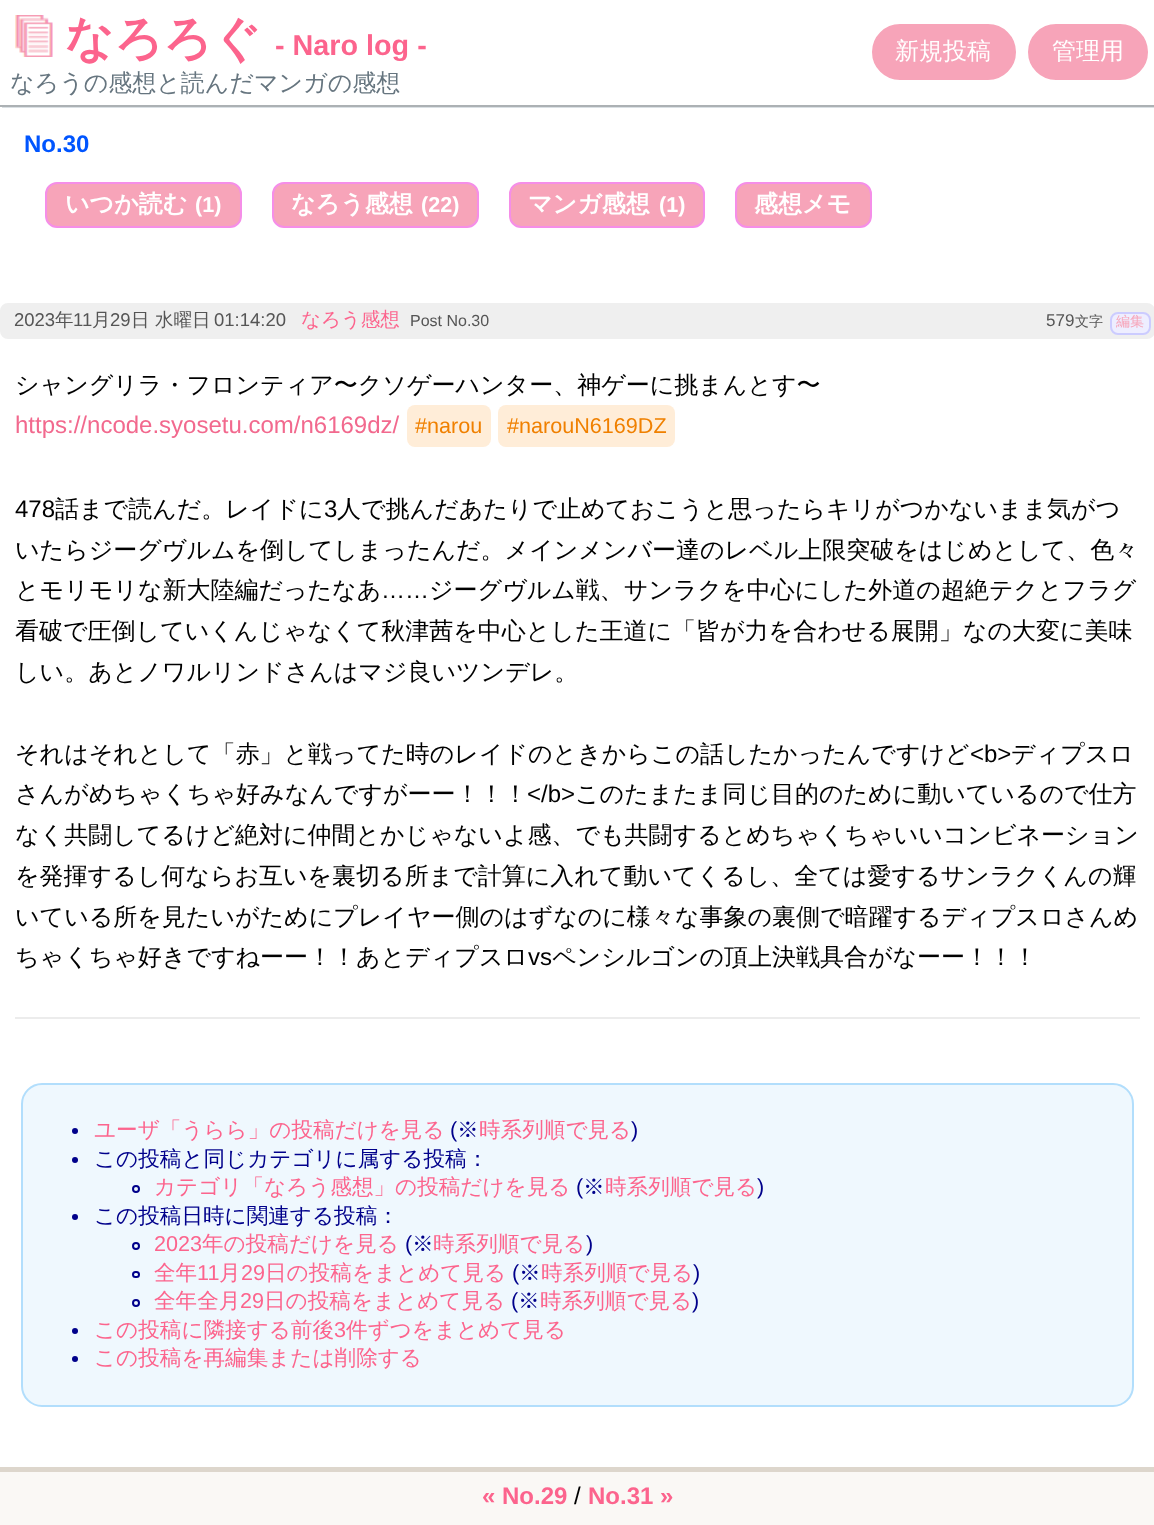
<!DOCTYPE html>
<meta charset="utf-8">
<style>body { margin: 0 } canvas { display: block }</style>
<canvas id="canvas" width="1154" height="1525"></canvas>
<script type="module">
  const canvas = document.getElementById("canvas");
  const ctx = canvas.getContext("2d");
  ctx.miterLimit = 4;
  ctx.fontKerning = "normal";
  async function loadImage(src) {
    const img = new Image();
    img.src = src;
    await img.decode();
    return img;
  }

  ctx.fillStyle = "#ffffff";
  ctx.fillRect(0, 0, 1154, 1525);
  ctx.fillStyle = "#dae0e4";
  ctx.beginPath();
  ctx.moveTo(2, 106);
  ctx.lineTo(2, 108);
  ctx.lineTo(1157, 108);
  ctx.lineTo(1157, 2);
  ctx.lineTo(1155, 2);
  ctx.lineTo(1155, 106);
  ctx.closePath();
  ctx.fill();
  ctx.fillStyle = "#acb1b4";
  ctx.fillRect(0, 105, 1154, 2);
  ctx.drawImage(await loadImage("img1.png"), 15, 15, 38, 42);
  ctx.font = "bold 48px WenQuanYi Zen Hei";
  ctx.fillStyle = "#fc648d";
  ctx.fillText("なろろぐ", 65, 55);
  ctx.font = "bold 28.75px Liberation Sans";
  ctx.fillText("- Naro log -", 275, 55);
  ctx.font = "500 24px WenQuanYi Zen Hei";
  ctx.fillStyle = "#66757f";
  ctx.fillText("なろうの感想と読んだマンガの感想", 10, 91);
  ctx.fillStyle = "#f7a4b9";
  ctx.beginPath();
  ctx.roundRect(870.5, 22.5, 147, 59, 29.5);
  ctx.fill();
  ctx.strokeStyle = "#ffffff";
  ctx.lineWidth = 3;
  ctx.stroke();
  ctx.fillStyle = "#ffffff";
  ctx.fillText("新規投稿", 895, 59);
  ctx.fillStyle = "#f7a4b9";
  ctx.beginPath();
  ctx.roundRect(1026.5, 22.5, 123, 59, 29.5);
  ctx.fill();
  ctx.stroke();
  ctx.fillStyle = "#ffffff";
  ctx.fillText("管理用", 1052, 59);
  ctx.font = "bold 24px Liberation Sans";
  ctx.fillStyle = "#0055ff";
  ctx.fillText("No.30", 24, 152);
  ctx.fillStyle = "#f7a4b9";
  ctx.beginPath();
  ctx.roundRect(46, 183, 195, 44, 11);
  ctx.fill();
  ctx.strokeStyle = "#f58ee8";
  ctx.lineWidth = 2;
  ctx.stroke();
  ctx.font = "bold 24px WenQuanYi Zen Hei";
  ctx.fillStyle = "#ffffff";
  ctx.fillText("いつか読む", 65, 212);
  ctx.font = "bold 21.6px Liberation Sans";
  ctx.fillText("(1)", 195, 212);
  ctx.fillStyle = "#f7a4b9";
  ctx.beginPath();
  ctx.roundRect(273, 183, 205, 44, 11);
  ctx.fill();
  ctx.stroke();
  ctx.font = "bold 24px WenQuanYi Zen Hei";
  ctx.fillStyle = "#ffffff";
  ctx.fillText("なろう感想", 291, 212);
  ctx.font = "bold 21.6px Liberation Sans";
  ctx.fillText("(22)", 421, 212);
  ctx.fillStyle = "#f7a4b9";
  ctx.beginPath();
  ctx.roundRect(510, 183, 194, 44, 11);
  ctx.fill();
  ctx.stroke();
  ctx.font = "bold 24px WenQuanYi Zen Hei";
  ctx.fillStyle = "#ffffff";
  ctx.fillText("マンガ感想", 528, 212);
  ctx.font = "bold 21.6px Liberation Sans";
  ctx.fillText("(1)", 659, 212);
  ctx.fillStyle = "#f7a4b9";
  ctx.beginPath();
  ctx.roundRect(736, 183, 135, 44, 11);
  ctx.fill();
  ctx.stroke();
  ctx.font = "bold 24px WenQuanYi Zen Hei";
  ctx.fillStyle = "#ffffff";
  ctx.fillText("感想メモ", 754, 212);
  ctx.fillStyle = "#ececec";
  ctx.fillRect(15, 1017, 1125, 2);
  ctx.fillStyle = "#efefef";
  ctx.beginPath();
  ctx.roundRect(0, 303, 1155, 36, 8);
  ctx.fill();
  ctx.font = "18.5px Liberation Sans";
  ctx.fillStyle = "#555555";
  ctx.fillText("2023", 14, 326);
  ctx.font = "500 18.5px WenQuanYi Zen Hei";
  ctx.fillText("年", 55, 326);
  ctx.font = "18.5px Liberation Sans";
  ctx.fillText("11", 73, 326);
  ctx.font = "500 18.5px WenQuanYi Zen Hei";
  ctx.fillText("月", 92, 326);
  ctx.font = "18.5px Liberation Sans";
  ctx.fillText("29", 110, 326);
  ctx.font = "500 18.5px WenQuanYi Zen Hei";
  ctx.fillText("日 水曜日", 131, 326);
  ctx.font = "18.5px Liberation Sans";
  ctx.fillText("01:14:20", 214, 326);
  ctx.font = "500 19.5px WenQuanYi Zen Hei";
  ctx.fillStyle = "#fc648d";
  ctx.fillText("なろう感想", 301, 326);
  ctx.font = "16px Liberation Sans";
  ctx.fillStyle = "#555555";
  ctx.fillText("Post No.30", 410, 326);
  ctx.font = "17px Liberation Sans";
  ctx.fillText("579", 1046, 326);
  ctx.font = "500 14px WenQuanYi Zen Hei";
  ctx.fillText("文字", 1075, 326);
  ctx.fillStyle = "#eeeeff";
  ctx.beginPath();
  ctx.roundRect(1111, 313, 39, 21, 7);
  ctx.fill();
  ctx.strokeStyle = "#ccccff";
  ctx.stroke();
  ctx.fillStyle = "#f7a4b9";
  ctx.fillText("編集", 1116, 326);
  ctx.font = "500 24px WenQuanYi Zen Hei";
  ctx.fillStyle = "#000000";
  ctx.fillText("シャングリラ・フロンティア〜クソゲーハンター、神ゲーに挑まんとす〜", 15, 393);
  ctx.font = "24px Liberation Sans";
  ctx.fillStyle = "#f2698e";
  ctx.fillText("https://ncode.syosetu.com/n6169dz/", 15, 433);
  ctx.fillStyle = "#ffedd8";
  ctx.beginPath();
  ctx.roundRect(407, 405, 84, 42, 8);
  ctx.fill();
  ctx.font = "21.6px Liberation Sans";
  ctx.fillStyle = "#f08000";
  ctx.fillText("#narou", 415, 433);
  ctx.fillStyle = "#ffedd8";
  ctx.beginPath();
  ctx.roundRect(498, 405, 177, 42, 8);
  ctx.fill();
  ctx.fillStyle = "#f08000";
  ctx.fillText("#narouN6169DZ", 507, 433);
  ctx.font = "24px Liberation Sans";
  ctx.fillStyle = "#000000";
  ctx.fillText("478", 15, 517);
  ctx.font = "500 24px WenQuanYi Zen Hei";
  ctx.fillText("話まで読んだ。レイドに", 55, 517);
  ctx.font = "24px Liberation Sans";
  ctx.fillText("3", 324, 517);
  ctx.font = "500 24px WenQuanYi Zen Hei";
  ctx.fillText("人で挑んだあたりで止めておこうと思ったらキリがつかないまま気がつ", 337, 517);
  ctx.fillText("いたらジーグヴルムを倒してしまったんだ。メインメンバー達のレベル上限突破をはじめとして、色々", 15, 558);
  ctx.fillText("とモリモリな新大陸編だったなあ", 15, 598);
  ctx.font = "24px Liberation Sans";
  ctx.fillText("……", 381, 598);
  ctx.font = "500 24px WenQuanYi Zen Hei";
  ctx.fillText("ジーグヴルム戦、サンラクを中心にした外道の超絶テクとフラグ", 429, 598);
  ctx.fillText("看破で圧倒していくんじゃなくて秋津茜を中心とした王道に「皆が力を合わせる展開」なの大変に美味", 15, 639);
  ctx.fillText("しい。あとノワルリンドさんはマジ良いツンデレ。", 15, 680);
  ctx.fillText("それはそれとして「赤」と戦ってた時のレイドのときからこの話したかったんですけど", 15, 762);
  ctx.font = "24px Liberation Sans";
  ctx.fillText("<b>", 970, 762);
  ctx.font = "500 24px WenQuanYi Zen Hei";
  ctx.fillText("ディプスロ", 1011, 762);
  ctx.fillText("さんがめちゃくちゃ好みなんですがーー！！！", 15, 802);
  ctx.font = "24px Liberation Sans";
  ctx.fillText("<\/b>", 527, 802);
  ctx.font = "500 24px WenQuanYi Zen Hei";
  ctx.fillText("このたまたま同じ目的のために動いているので仕方", 575, 802);
  ctx.fillText("なく共闘してるけど絶対に仲間とかじゃないよ感、でも共闘するとめちゃくちゃいいコンビネーション", 15, 843);
  ctx.fillText("を発揮するし何ならお互いを裏切る所まで計算に入れて動いてくるし、全ては愛するサンラクくんの輝", 15, 884);
  ctx.fillText("いている所を見たいがためにプレイヤー側のはずなのに様々な事象の裏側で暗躍するディプスロさんめ", 15, 925);
  ctx.fillText("ちゃくちゃ好きですねーー！！あとディプスロ", 15, 965);
  ctx.font = "24px Liberation Sans";
  ctx.fillText("vs", 528, 965);
  ctx.font = "500 24px WenQuanYi Zen Hei";
  ctx.fillText("ペンシルゴンの頂上決戦具合がなーー！！！", 552, 965);
  ctx.fillStyle = "#eff8fe";
  ctx.beginPath();
  ctx.roundRect(22, 1084, 1111, 322, 20);
  ctx.fill();
  ctx.strokeStyle = "#b2defc";
  ctx.stroke();
  ctx.fillStyle = "#00008b";
  ctx.beginPath();
  ctx.arc(75, 1131, 3, 0, Math.PI * 2);
  ctx.fill();
  ctx.font = "500 21.6px WenQuanYi Zen Hei";
  ctx.fillStyle = "#fc648d";
  ctx.fillText("ユーザ「うらら」の投稿だけを見る", 94, 1137);
  ctx.font = "21.6px Liberation Sans";
  ctx.fillStyle = "#00008b";
  ctx.fillText("(", 450, 1137);
  ctx.font = "500 21.6px WenQuanYi Zen Hei";
  ctx.fillText("※", 457, 1137);
  ctx.fillStyle = "#fc648d";
  ctx.fillText("時系列順で見る", 479, 1137);
  ctx.font = "21.6px Liberation Sans";
  ctx.fillStyle = "#00008b";
  ctx.fillText(")", 631, 1137);
  ctx.beginPath();
  ctx.arc(75, 1160, 3, 0, Math.PI * 2);
  ctx.fill();
  ctx.font = "500 21.6px WenQuanYi Zen Hei";
  ctx.fillText("この投稿と同じカテゴリに属する投稿：", 94, 1166);
  ctx.beginPath();
  ctx.arc(136, 1189, 3, 0, Math.PI * 2);
  ctx.strokeStyle = "#00008b";
  ctx.stroke();
  ctx.fillStyle = "#fc648d";
  ctx.fillText("カテゴリ「なろう感想」の投稿だけを見る", 154, 1194);
  ctx.font = "21.6px Liberation Sans";
  ctx.fillStyle = "#00008b";
  ctx.fillText("(", 576, 1194);
  ctx.font = "500 21.6px WenQuanYi Zen Hei";
  ctx.fillText("※", 583, 1194);
  ctx.fillStyle = "#fc648d";
  ctx.fillText("時系列順で見る", 605, 1194);
  ctx.font = "21.6px Liberation Sans";
  ctx.fillStyle = "#00008b";
  ctx.fillText(")", 757, 1194);
  ctx.beginPath();
  ctx.arc(75, 1217, 3, 0, Math.PI * 2);
  ctx.fill();
  ctx.font = "500 21.6px WenQuanYi Zen Hei";
  ctx.fillText("この投稿日時に関連する投稿：", 94, 1223);
  ctx.beginPath();
  ctx.arc(136, 1246, 3, 0, Math.PI * 2);
  ctx.stroke();
  ctx.font = "21.6px Liberation Sans";
  ctx.fillStyle = "#fc648d";
  ctx.fillText("2023", 154, 1251);
  ctx.font = "500 21.6px WenQuanYi Zen Hei";
  ctx.fillText("年の投稿だけを見る", 202, 1251);
  ctx.font = "21.6px Liberation Sans";
  ctx.fillStyle = "#00008b";
  ctx.fillText("(", 405, 1251);
  ctx.font = "500 21.6px WenQuanYi Zen Hei";
  ctx.fillText("※", 412, 1251);
  ctx.fillStyle = "#fc648d";
  ctx.fillText("時系列順で見る", 433, 1251);
  ctx.font = "21.6px Liberation Sans";
  ctx.fillStyle = "#00008b";
  ctx.fillText(")", 586, 1251);
  ctx.beginPath();
  ctx.roundRect(133, 1272, 6, 5, 2.5);
  ctx.stroke();
  ctx.font = "500 21.6px WenQuanYi Zen Hei";
  ctx.fillStyle = "#fc648d";
  ctx.fillText("全年", 154, 1280);
  ctx.font = "21.6px Liberation Sans";
  ctx.fillText("11", 197, 1280);
  ctx.font = "500 21.6px WenQuanYi Zen Hei";
  ctx.fillText("月", 219, 1280);
  ctx.font = "21.6px Liberation Sans";
  ctx.fillText("29", 241, 1280);
  ctx.font = "500 21.6px WenQuanYi Zen Hei";
  ctx.fillText("日の投稿をまとめて見る", 265, 1280);
  ctx.font = "21.6px Liberation Sans";
  ctx.fillStyle = "#00008b";
  ctx.fillText("(", 512, 1280);
  ctx.font = "500 21.6px WenQuanYi Zen Hei";
  ctx.fillText("※", 519, 1280);
  ctx.fillStyle = "#fc648d";
  ctx.fillText("時系列順で見る", 541, 1280);
  ctx.font = "21.6px Liberation Sans";
  ctx.fillStyle = "#00008b";
  ctx.fillText(")", 693, 1280);
  ctx.beginPath();
  ctx.arc(136, 1303, 3, 0, Math.PI * 2);
  ctx.stroke();
  ctx.font = "500 21.6px WenQuanYi Zen Hei";
  ctx.fillStyle = "#fc648d";
  ctx.fillText("全年全月", 154, 1308);
  ctx.font = "21.6px Liberation Sans";
  ctx.fillText("29", 240, 1308);
  ctx.font = "500 21.6px WenQuanYi Zen Hei";
  ctx.fillText("日の投稿をまとめて見る", 264, 1308);
  ctx.font = "21.6px Liberation Sans";
  ctx.fillStyle = "#00008b";
  ctx.fillText("(", 511, 1308);
  ctx.font = "500 21.6px WenQuanYi Zen Hei";
  ctx.fillText("※", 518, 1308);
  ctx.fillStyle = "#fc648d";
  ctx.fillText("時系列順で見る", 540, 1308);
  ctx.font = "21.6px Liberation Sans";
  ctx.fillStyle = "#00008b";
  ctx.fillText(")", 692, 1308);
  ctx.beginPath();
  ctx.arc(75, 1331, 3, 0, Math.PI * 2);
  ctx.fill();
  ctx.font = "500 21.6px WenQuanYi Zen Hei";
  ctx.fillStyle = "#fc648d";
  ctx.fillText("この投稿に隣接する前後", 94, 1337);
  ctx.font = "21.6px Liberation Sans";
  ctx.fillText("3", 334, 1337);
  ctx.font = "500 21.6px WenQuanYi Zen Hei";
  ctx.fillText("件ずつをまとめて見る", 346, 1337);
  ctx.fillStyle = "#00008b";
  ctx.beginPath();
  ctx.arc(75, 1359, 3, 0, Math.PI * 2);
  ctx.fill();
  ctx.fillStyle = "#fc648d";
  ctx.fillText("この投稿を再編集または削除する", 94, 1365);
  ctx.fillStyle = "#faf8f5";
  ctx.fillRect(0, 1472, 1154, 53);
  ctx.fillStyle = "#ddd6cc";
  ctx.fillRect(0, 1467, 1154, 5);
  ctx.font = "bold 24px Liberation Sans";
  ctx.fillStyle = "#fc648d";
  ctx.fillText("« No.29", 482, 1504);
  ctx.font = "24px Liberation Sans";
  ctx.fillStyle = "#000000";
  ctx.fillText("/", 574, 1504);
  ctx.font = "bold 24px Liberation Sans";
  ctx.fillStyle = "#fc648d";
  ctx.fillText("No.31 »", 588, 1504);
</script>
